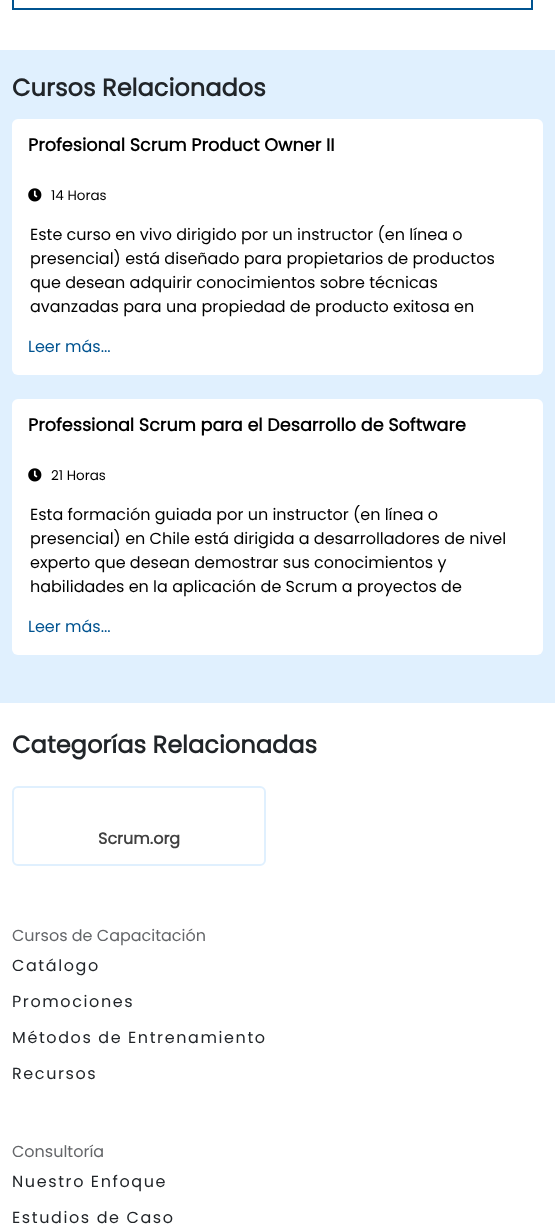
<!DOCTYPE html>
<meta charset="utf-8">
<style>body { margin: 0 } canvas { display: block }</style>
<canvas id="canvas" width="555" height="1224"></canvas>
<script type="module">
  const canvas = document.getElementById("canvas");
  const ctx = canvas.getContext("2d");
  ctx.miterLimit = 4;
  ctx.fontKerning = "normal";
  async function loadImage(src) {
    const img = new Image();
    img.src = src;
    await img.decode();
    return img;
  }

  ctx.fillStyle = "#ffffff";
  ctx.fillRect(0, 0, 555, 1224);
  ctx.strokeStyle = "#005390";
  ctx.lineWidth = 2;
  ctx.strokeRect(13, -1, 519, 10);
  ctx.fillStyle = "#e0f0fe";
  ctx.fillRect(0, 50, 555, 653);
  ctx.font = "bold 24.1px Poppins";
  ctx.fillStyle = "#212529";
  ctx.fillText("Cursos Relacionados", 12, 96);
  ctx.fillStyle = "#ffffff";
  ctx.beginPath();
  ctx.roundRect(12, 119, 531, 256, 6);
  ctx.fill();
  ctx.font = "bold 17.6px Poppins";
  ctx.fillStyle = "#000000";
  ctx.fillText("Profesional Scrum Product Owner II", 28, 151);
  ctx.drawImage(await loadImage("img1.png"), 28, 188, 14, 14);
  ctx.font = "13.5px Poppins";
  ctx.fillText("14 Horas", 51, 200);
  ctx.font = "16px Poppins";
  ctx.fillText("Este curso en vivo dirigido por un instructor (en línea o", 30, 240);
  ctx.fillText("presencial) está diseñado para propietarios de productos", 30, 264);
  ctx.fillText("que desean adquirir conocimientos sobre técnicas", 30, 288);
  ctx.fillText("avanzadas para una propiedad de producto exitosa en", 30, 312);
  ctx.fillStyle = "#005390";
  ctx.fillText("Leer más...", 28, 352);
  ctx.fillStyle = "#ffffff";
  ctx.beginPath();
  ctx.roundRect(12, 399, 531, 256, 6);
  ctx.fill();
  ctx.font = "bold 17.6px Poppins";
  ctx.fillStyle = "#000000";
  ctx.fillText("Professional Scrum para el Desarrollo de Software", 28, 431);
  ctx.drawImage(await loadImage("img1.png"), 28, 468, 14, 14);
  ctx.font = "13.5px Poppins";
  ctx.fillText("21 Horas", 51, 480);
  ctx.font = "16px Poppins";
  ctx.fillText("Esta formación guiada por un instructor (en línea o", 30, 520);
  ctx.fillText("presencial) en Chile está dirigida a desarrolladores de nivel", 30, 544);
  ctx.fillText("experto que desean demostrar sus conocimientos y", 30, 568);
  ctx.fillText("habilidades en la aplicación de Scrum a proyectos de", 30, 592);
  ctx.fillStyle = "#005390";
  ctx.fillText("Leer más...", 28, 632);
  ctx.font = "bold 24.1px Poppins";
  ctx.fillStyle = "#212529";
  ctx.fillText("Categorías Relacionadas", 12, 753);
  ctx.beginPath();
  ctx.roundRect(13, 787, 252, 78, 5);
  ctx.strokeStyle = "#e0f0fe";
  ctx.stroke();
  ctx.font = "bold 16px Poppins";
  ctx.fillStyle = "#414141";
  ctx.fillText("Scrum.org", 98, 844);
  ctx.font = "16px Poppins";
  ctx.fillStyle = "#646669";
  ctx.fillText("Cursos de Capacitación", 12, 941);
  ctx.letterSpacing = "1.6px";
  ctx.fillStyle = "#212529";
  ctx.fillText("Catálogo", 12, 971);
  ctx.fillText("Promociones", 12, 1007);
  ctx.fillText("Métodos de Entrenamiento", 12, 1043);
  ctx.fillText("Recursos", 12, 1079);
  ctx.letterSpacing = "0px";
  ctx.fillStyle = "#646669";
  ctx.fillText("Consultoría", 12, 1157);
  ctx.letterSpacing = "1.6px";
  ctx.fillStyle = "#212529";
  ctx.fillText("Nuestro Enfoque", 12, 1187);
  ctx.fillText("Estudios de Caso", 12, 1223);
</script>
